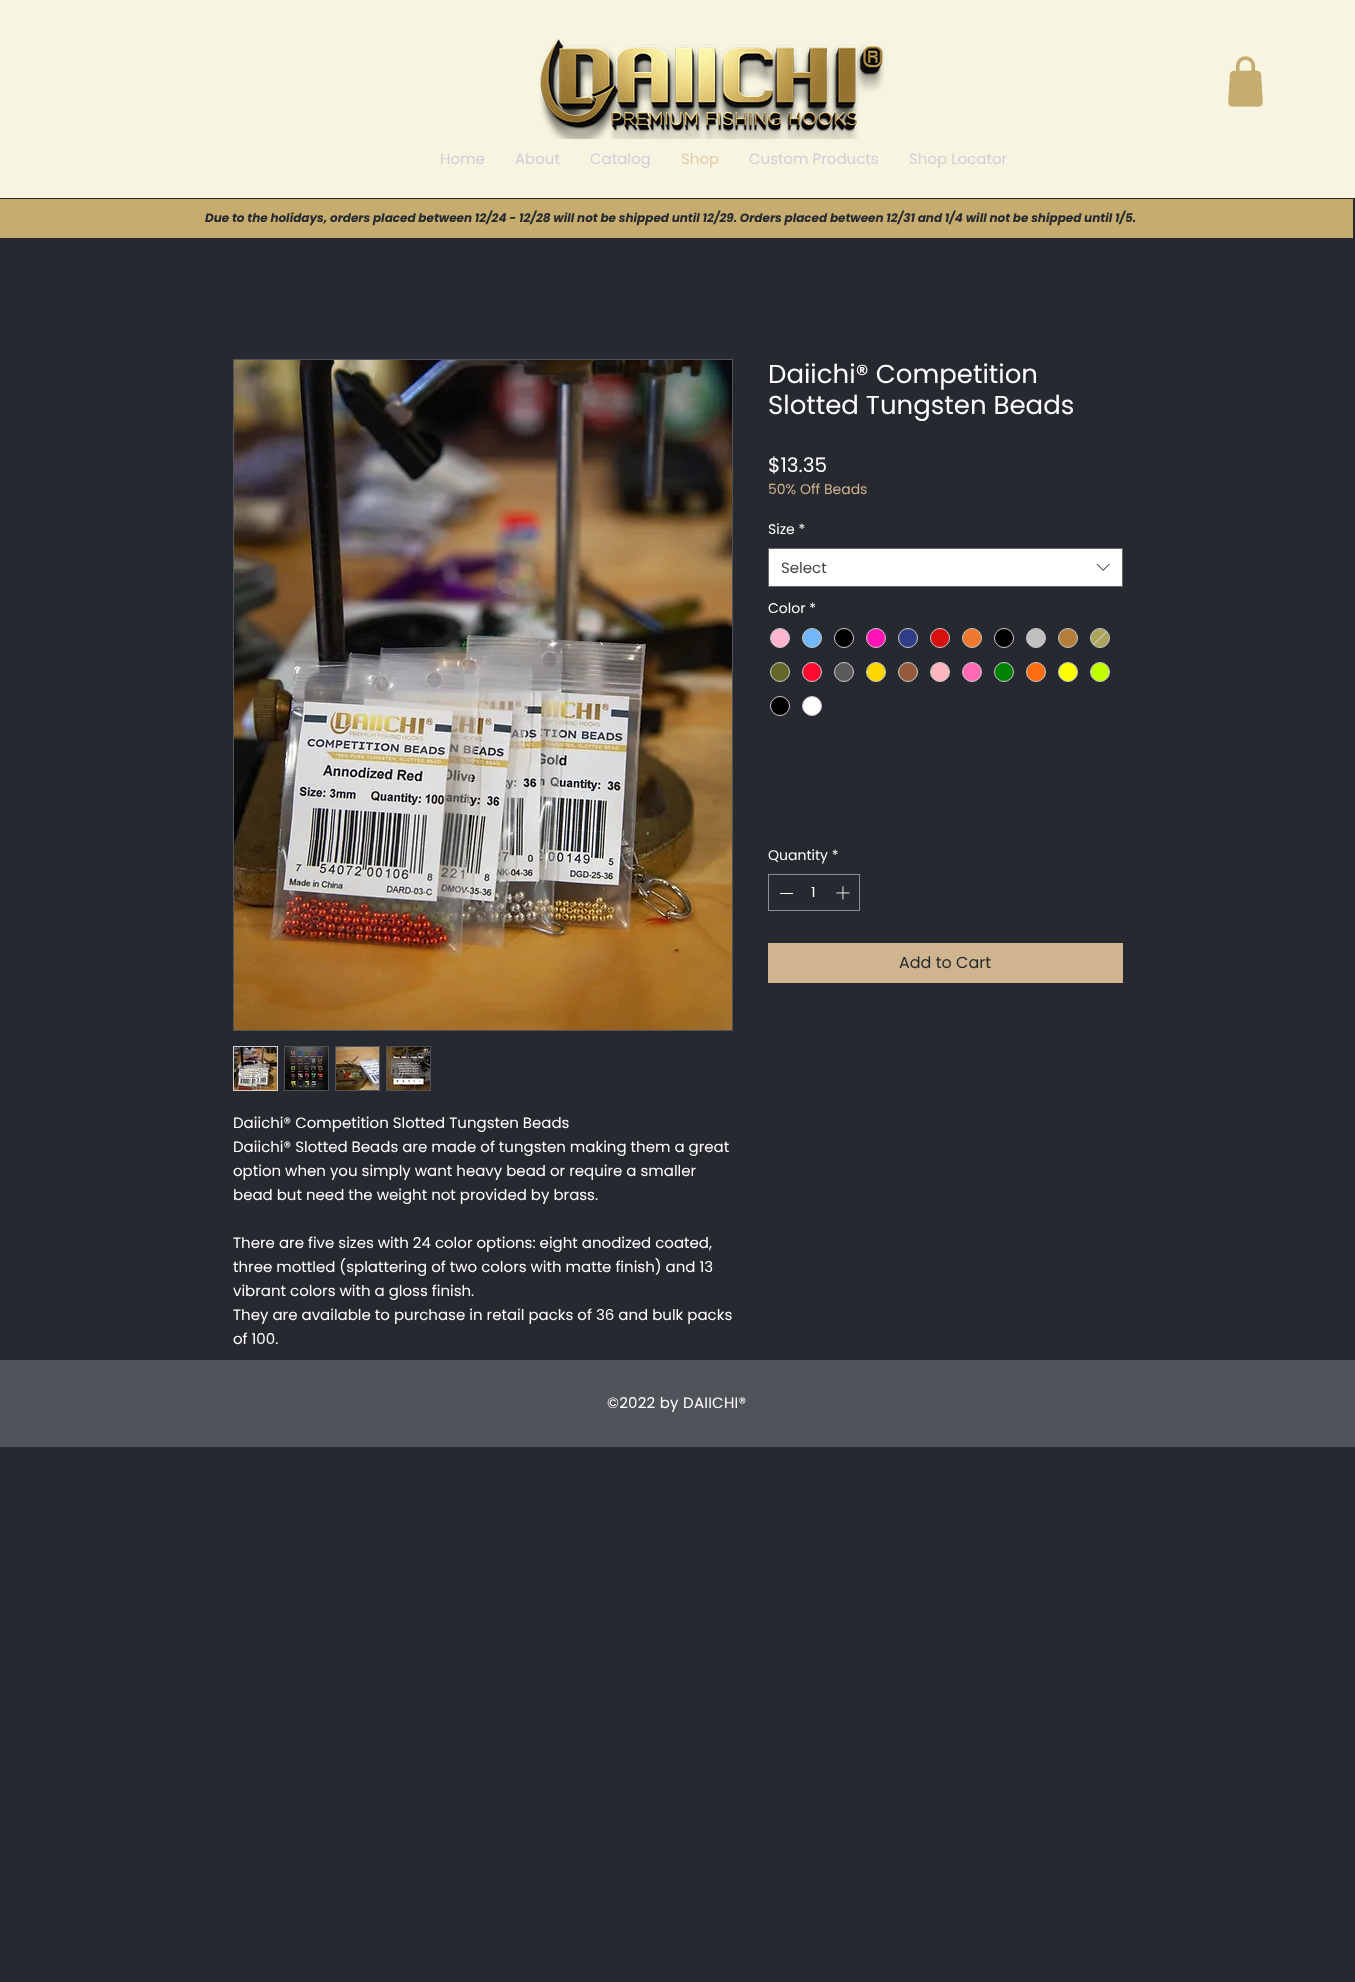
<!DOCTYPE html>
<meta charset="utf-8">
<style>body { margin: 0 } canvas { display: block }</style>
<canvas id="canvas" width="1355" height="1982"></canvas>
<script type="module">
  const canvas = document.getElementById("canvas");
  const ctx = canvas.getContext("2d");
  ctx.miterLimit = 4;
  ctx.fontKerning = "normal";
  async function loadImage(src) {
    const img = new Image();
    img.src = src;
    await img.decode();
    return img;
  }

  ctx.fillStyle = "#26292f";
  ctx.fillRect(0, 0, 1355, 1982);
  ctx.fillStyle = "#f7f5e1";
  ctx.fillRect(0, 0, 1355, 198);
  ctx.drawImage(await loadImage("img1.png"), 538, 39, 347, 100);
  ctx.drawImage(await loadImage("img2.png"), 1228, 56, 35, 51);
  ctx.font = "15px Poppins";
  ctx.fillStyle = "#cdd0d5";
  ctx.fillText("Home", 440, 164);
  ctx.fillText("About", 515, 164);
  ctx.fillText("Catalog", 590, 164);
  ctx.fillStyle = "#e3cbaa";
  ctx.fillText("Shop", 681, 164);
  ctx.fillStyle = "#cdd0d5";
  ctx.fillText("Custom Products", 749, 164);
  ctx.fillText("Shop Locator", 909, 164);
  ctx.fillStyle = "#c6ad6f";
  ctx.fillRect(0, 199, 1353, 39);
  ctx.font = "italic bold 12px Poppins";
  ctx.fillStyle = "#26292f";
  ctx.fillText("Due to the holidays, orders placed between 12/24 - 12/28 will not be shipped until 12/29. Orders placed between 12/31 and 1/4 will not be shipped until 1/5.", 205, 222);
  ctx.font = "26px Poppins";
  ctx.fillStyle = "#ffffff";
  ctx.fillText("Daiichi® Competition", 768, 383);
  ctx.fillText("Slotted Tungsten Beads", 768, 414);
  ctx.font = "20px Poppins";
  ctx.fillText("$13.35", 768, 472);
  ctx.font = "14px Poppins";
  ctx.fillStyle = "#d0b48f";
  ctx.fillText("50% Off Beads", 768, 494);
  ctx.fillStyle = "#ffffff";
  ctx.fillText("Size *", 768, 534);
  ctx.beginPath();
  ctx.rect(768.5, 548.5, 354, 38);
  ctx.fill();
  ctx.strokeStyle = "#666666";
  ctx.stroke();
  ctx.font = "15px Poppins";
  ctx.fillStyle = "#444444";
  ctx.fillText("Select", 781, 573);
  ctx.drawImage(await loadImage("img3.png"), 1096, 563, 14, 8);
  ctx.font = "14px Poppins";
  ctx.fillStyle = "#ffffff";
  ctx.fillText("Color *", 768, 613);
  ctx.fillStyle = "#ffb4d0";
  ctx.beginPath();
  ctx.arc(780, 638, 9.5, 0, Math.PI * 2);
  ctx.fill();
  ctx.strokeStyle = "#c9c9c9";
  ctx.stroke();
  ctx.fillStyle = "#70b8f9";
  ctx.beginPath();
  ctx.arc(812, 638, 9.5, 0, Math.PI * 2);
  ctx.fill();
  ctx.stroke();
  ctx.fillStyle = "#000000";
  ctx.beginPath();
  ctx.arc(844, 638, 9.5, 0, Math.PI * 2);
  ctx.fill();
  ctx.stroke();
  ctx.fillStyle = "#ff13b8";
  ctx.beginPath();
  ctx.arc(876, 638, 9.5, 0, Math.PI * 2);
  ctx.fill();
  ctx.stroke();
  ctx.fillStyle = "#2f3e86";
  ctx.beginPath();
  ctx.arc(908, 638, 9.5, 0, Math.PI * 2);
  ctx.fill();
  ctx.stroke();
  ctx.fillStyle = "#d70f0f";
  ctx.beginPath();
  ctx.arc(940, 638, 9.5, 0, Math.PI * 2);
  ctx.fill();
  ctx.stroke();
  ctx.fillStyle = "#f17830";
  ctx.beginPath();
  ctx.arc(972, 638, 9.5, 0, Math.PI * 2);
  ctx.fill();
  ctx.stroke();
  ctx.fillStyle = "#000000";
  ctx.beginPath();
  ctx.arc(1004, 638, 9.5, 0, Math.PI * 2);
  ctx.fill();
  ctx.stroke();
  ctx.fillStyle = "#c0c0c0";
  ctx.beginPath();
  ctx.arc(1036, 638, 9.5, 0, Math.PI * 2);
  ctx.fill();
  ctx.stroke();
  ctx.fillStyle = "#b47e3c";
  ctx.beginPath();
  ctx.arc(1068, 638, 9.5, 0, Math.PI * 2);
  ctx.fill();
  ctx.stroke();
  ctx.fillStyle = "#aaa45d";
  ctx.beginPath();
  ctx.arc(1100, 638, 9.5, 0, Math.PI * 2);
  ctx.fill();
  ctx.stroke();
  ctx.fillStyle = "#c9c9c9";
  ctx.beginPath();
  ctx.moveTo(1107, 632);
  ctx.lineTo(1094, 645);
  ctx.lineTo(1093.5, 644);
  ctx.lineTo(1106, 631.5);
  ctx.closePath();
  ctx.fill();
  ctx.fillStyle = "#63692b";
  ctx.beginPath();
  ctx.arc(780, 672, 9.5, 0, Math.PI * 2);
  ctx.fill();
  ctx.stroke();
  ctx.fillStyle = "#ff0a2e";
  ctx.beginPath();
  ctx.arc(812, 672, 9.5, 0, Math.PI * 2);
  ctx.fill();
  ctx.stroke();
  ctx.fillStyle = "#5b5b5b";
  ctx.beginPath();
  ctx.arc(844, 672, 9.5, 0, Math.PI * 2);
  ctx.fill();
  ctx.stroke();
  ctx.fillStyle = "#ffd700";
  ctx.beginPath();
  ctx.arc(876, 672, 9.5, 0, Math.PI * 2);
  ctx.fill();
  ctx.stroke();
  ctx.fillStyle = "#965a3d";
  ctx.beginPath();
  ctx.arc(908, 672, 9.5, 0, Math.PI * 2);
  ctx.fill();
  ctx.stroke();
  ctx.fillStyle = "#ffb6c1";
  ctx.beginPath();
  ctx.arc(940, 672, 9.5, 0, Math.PI * 2);
  ctx.fill();
  ctx.stroke();
  ctx.fillStyle = "#ff69b4";
  ctx.beginPath();
  ctx.arc(972, 672, 9.5, 0, Math.PI * 2);
  ctx.fill();
  ctx.stroke();
  ctx.fillStyle = "#008000";
  ctx.beginPath();
  ctx.arc(1004, 672, 9.5, 0, Math.PI * 2);
  ctx.fill();
  ctx.stroke();
  ctx.fillStyle = "#ff6d15";
  ctx.beginPath();
  ctx.arc(1036, 672, 9.5, 0, Math.PI * 2);
  ctx.fill();
  ctx.stroke();
  ctx.fillStyle = "#ffff00";
  ctx.beginPath();
  ctx.arc(1068, 672, 9.5, 0, Math.PI * 2);
  ctx.fill();
  ctx.stroke();
  ctx.fillStyle = "#bfff00";
  ctx.beginPath();
  ctx.arc(1100, 672, 9.5, 0, Math.PI * 2);
  ctx.fill();
  ctx.stroke();
  ctx.fillStyle = "#000000";
  ctx.beginPath();
  ctx.arc(780, 706, 9.5, 0, Math.PI * 2);
  ctx.fill();
  ctx.stroke();
  ctx.fillStyle = "#ffffff";
  ctx.beginPath();
  ctx.arc(812, 706, 9.5, 0, Math.PI * 2);
  ctx.fill();
  ctx.stroke();
  ctx.fillText("Quantity *", 768, 860);
  ctx.strokeStyle = "#8a8d93";
  ctx.strokeRect(768.5, 874.5, 91, 36);
  ctx.fillRect(780, 893, 13, 1);
  ctx.fillText("1", 811, 897);
  ctx.drawImage(await loadImage("img4.png"), 836, 886, 14, 14);
  ctx.fillStyle = "#d0b48f";
  ctx.fillRect(768, 943, 355, 40);
  ctx.font = "16px Poppins";
  ctx.fillStyle = "#26292f";
  ctx.fillText("Add to Cart", 899, 968);
  ctx.strokeStyle = "#505359";
  ctx.strokeRect(233.5, 359.5, 499, 671);
  ctx.drawImage(await loadImage("img5.png"), 234, 360, 498, 670);
  ctx.strokeStyle = "#cdd0d5";
  ctx.strokeRect(233.5, 1046.5, 44, 44);
  ctx.drawImage(await loadImage("img6.png"), 234, 1047, 43, 43);
  ctx.fillStyle = "#505359";
  ctx.fillRect(284, 1046, 45, 45);
  ctx.drawImage(await loadImage("img7.png"), 285, 1047, 43, 43);
  ctx.fillRect(335, 1046, 45, 45);
  ctx.drawImage(await loadImage("img8.png"), 336, 1047, 43, 43);
  ctx.fillRect(386, 1046, 45, 45);
  ctx.drawImage(await loadImage("img9.png"), 387, 1047, 43, 43);
  ctx.font = "15px Poppins";
  ctx.fillStyle = "#ffffff";
  ctx.fillText("Daiichi® Competition Slotted Tungsten Beads", 233, 1128);
  ctx.fillText("Daiichi® Slotted Beads are made of tungsten making them a great", 233, 1152);
  ctx.fillText("option when you simply want heavy bead or require a smaller", 233, 1176);
  ctx.fillText("bead but need the weight not provided by brass.", 233, 1200);
  ctx.fillText("There are five sizes with 24 color options: eight anodized coated,", 233, 1248);
  ctx.fillText("three mottled (splattering of two colors with matte finish) and 13", 233, 1272);
  ctx.fillText("vibrant colors with a gloss finish.", 233, 1296);
  ctx.fillText("They are available to purchase in retail packs of 36 and bulk packs", 233, 1320);
  ctx.fillText("of 100.", 233, 1344);
  ctx.fillStyle = "#505359";
  ctx.fillRect(0, 1360, 1355, 87);
  ctx.letterSpacing = "0.25px";
  ctx.fillStyle = "#ffffff";
  ctx.fillText("©2022 by DAIICHI®", 607, 1408);
</script>
